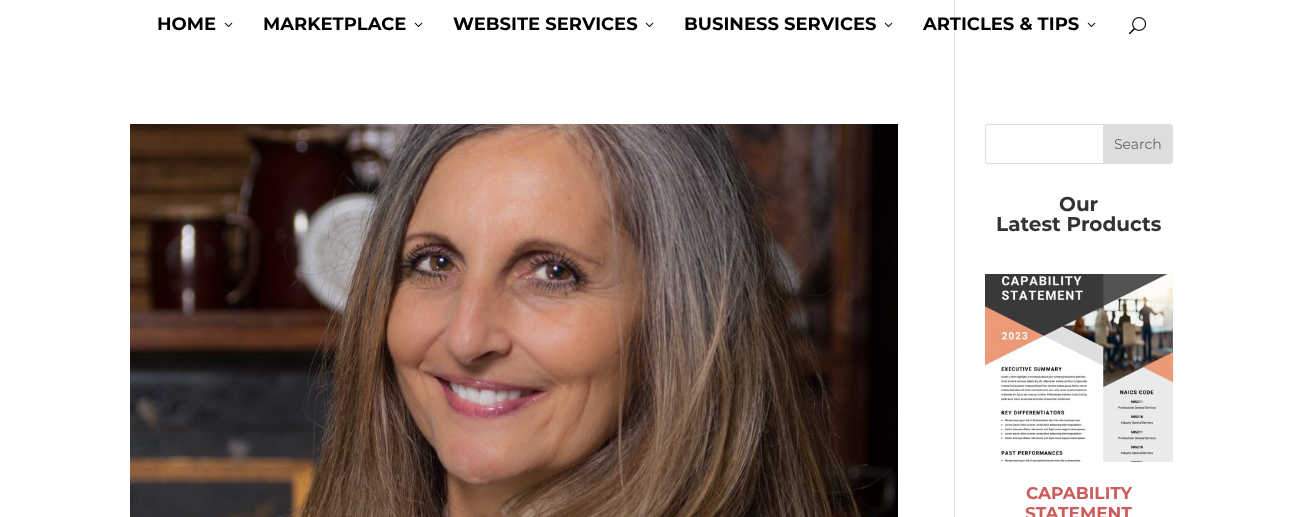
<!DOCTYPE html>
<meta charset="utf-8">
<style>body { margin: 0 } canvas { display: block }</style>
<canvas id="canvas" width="1303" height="517"></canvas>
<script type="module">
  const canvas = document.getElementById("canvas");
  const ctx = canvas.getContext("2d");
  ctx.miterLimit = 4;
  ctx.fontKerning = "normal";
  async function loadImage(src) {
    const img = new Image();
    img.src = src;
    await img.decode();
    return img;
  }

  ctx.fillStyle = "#ffffff";
  ctx.fillRect(0, 0, 1303, 517);
  ctx.font = "100 18px Montserrat";
  ctx.fillStyle = "#000000";
  ctx.fillText("HOME", 157, 30);
  ctx.drawImage(await loadImage("img1.png"), 224, 22, 9, 5);
  ctx.fillText("MARKETPLACE", 263, 30);
  ctx.drawImage(await loadImage("img1.png"), 414, 22, 9, 5);
  ctx.fillText("WEBSITE SERVICES", 453, 30);
  ctx.drawImage(await loadImage("img1.png"), 645, 22, 9, 5);
  ctx.fillText("BUSINESS SERVICES", 684, 30);
  ctx.drawImage(await loadImage("img1.png"), 884, 22, 9, 5);
  ctx.fillStyle = "#e2e2e2";
  ctx.fillRect(954, 0, 1, 517);
  ctx.fillStyle = "#000000";
  ctx.fillText("ARTICLES & TIPS", 923, 30);
  ctx.drawImage(await loadImage("img1.png"), 1087, 22, 9, 5);
  ctx.drawImage(await loadImage("img2.png"), 1129, 17, 17, 18);
  ctx.drawImage(await loadImage("img3.png"), 130, 124, 768, 393);
  ctx.beginPath();
  ctx.roundRect(985.5, 124.5, 187, 39, 2.5);
  ctx.strokeStyle = "#dddddd";
  ctx.stroke();
  ctx.fillStyle = "#dddddd";
  ctx.beginPath();
  ctx.roundRect(1103.5, 124.5, 69, 39, [0, 2.5, 2.5, 0]);
  ctx.fill();
  ctx.stroke();
  ctx.font = "100 14px 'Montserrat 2'";
  ctx.fillStyle = "#666666";
  ctx.fillText("Search", 1114, 149);
  ctx.font = "100 20px Montserrat";
  ctx.fillStyle = "#333333";
  ctx.fillText("Our", 1059, 211);
  ctx.fillText("Latest Products", 996, 231);
  ctx.drawImage(await loadImage("img4.png"), 985, 274, 188, 188);
  ctx.font = "100 17px Montserrat";
  ctx.fillStyle = "#cd5c5c";
  ctx.fillText("CAPABILITY", 1026, 499);
  ctx.fillText("STATEMENT", 1025, 519);
</script>
